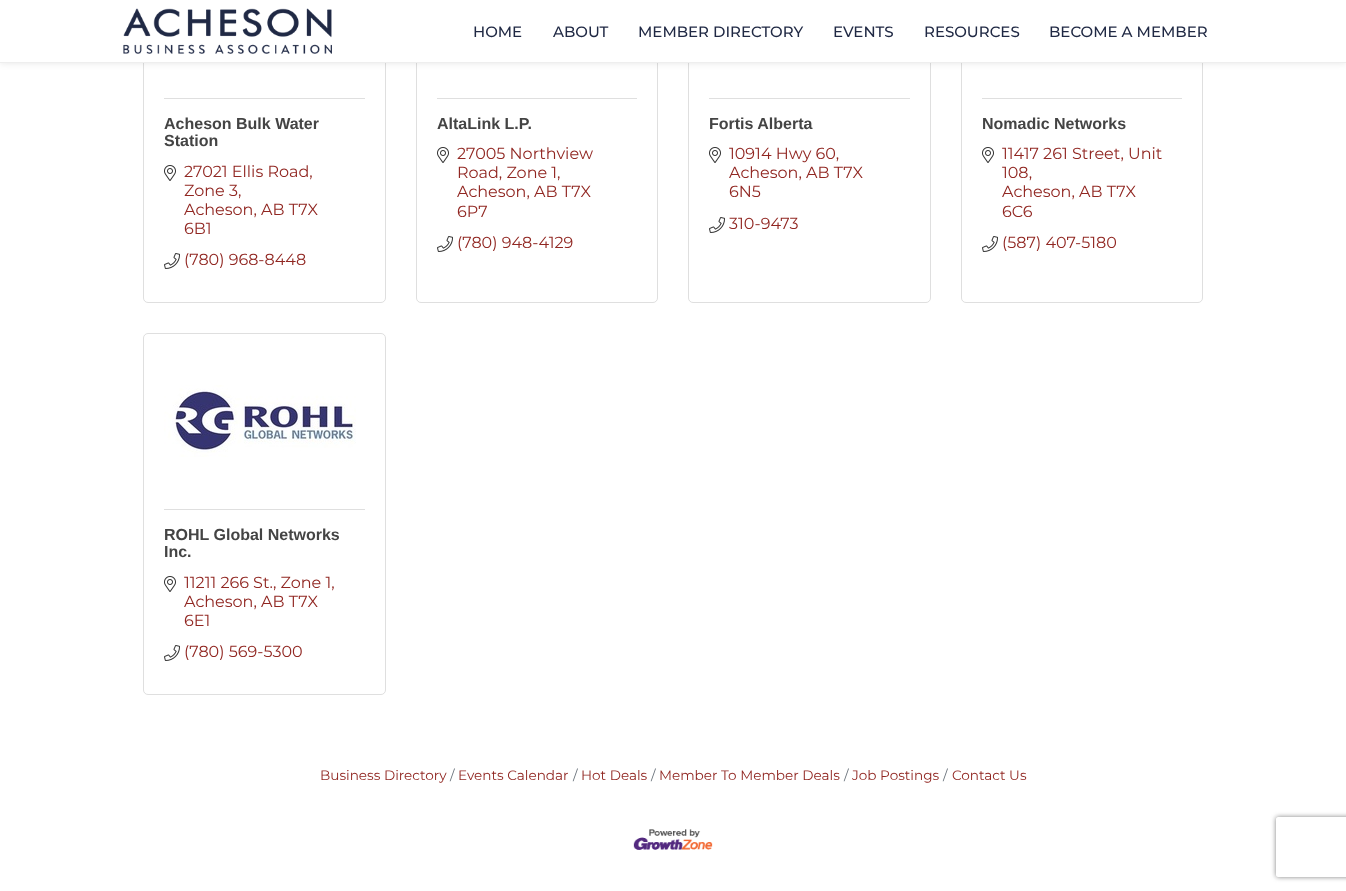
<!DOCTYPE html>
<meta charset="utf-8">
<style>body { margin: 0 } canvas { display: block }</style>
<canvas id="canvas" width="1346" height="891"></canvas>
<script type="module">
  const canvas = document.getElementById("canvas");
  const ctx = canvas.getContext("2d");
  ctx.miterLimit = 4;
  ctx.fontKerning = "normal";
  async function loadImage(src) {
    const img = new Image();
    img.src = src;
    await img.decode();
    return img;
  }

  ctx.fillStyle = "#ffffff";
  ctx.fillRect(0, 0, 1346, 891);
  ctx.beginPath();
  ctx.roundRect(143.5, -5.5, 242, 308, 4.5);
  ctx.strokeStyle = "#dfdfdf";
  ctx.stroke();
  ctx.beginPath();
  ctx.roundRect(416.5, -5.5, 241, 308, 4.5);
  ctx.stroke();
  ctx.beginPath();
  ctx.roundRect(688.5, -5.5, 242, 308, 4.5);
  ctx.stroke();
  ctx.beginPath();
  ctx.roundRect(961.5, -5.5, 241, 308, 4.5);
  ctx.stroke();
  ctx.fillStyle = "rgba(0, 0, 0, 0.1)";
  ctx.filter = "blur(3.5px)";
  ctx.beginPath();
  ctx.rect(0, 0, 1346, 63);
  ctx.fill();
  ctx.filter = "none";
  ctx.fillStyle = "#ffffff";
  ctx.fillRect(0, 0, 1346, 62);
  ctx.fillStyle = "#eeeeee";
  ctx.fillRect(0, 62, 1346, 1);
  ctx.drawImage(await loadImage("img1.png"), 123, 8, 209, 46);
  ctx.font = "500 15px Montserrat";
  ctx.fillStyle = "#202944";
  ctx.fillText("HOME", 473, 37);
  ctx.fillText("ABOUT", 553, 37);
  ctx.fillText("MEMBER DIRECTORY", 638, 37);
  ctx.fillText("EVENTS", 833, 37);
  ctx.fillText("RESOURCES", 924, 37);
  ctx.fillText("BECOME A MEMBER", 1049, 37);
  ctx.fillStyle = "#dfdfdf";
  ctx.fillRect(164, 98, 201, 1);
  ctx.font = "bold 16px Liberation Sans";
  ctx.fillStyle = "#444444";
  ctx.fillText("Acheson Bulk Water", 164, 129);
  ctx.fillText("Station", 164, 146);
  ctx.drawImage(await loadImage("img2.png"), 164, 165, 12, 16);
  ctx.font = "16px Montserrat";
  ctx.fillStyle = "#912722";
  ctx.fillText("27021 Ellis Road,", 184, 177);
  ctx.fillText("Zone 3,", 184, 196);
  ctx.fillText("Acheson, AB T7X", 184, 215);
  ctx.fillText("6B1", 184, 234);
  ctx.drawImage(await loadImage("img3.png"), 164, 253, 16, 16);
  ctx.fillText("(780) 968-8448", 184, 265);
  ctx.fillStyle = "#dfdfdf";
  ctx.fillRect(437, 98, 200, 1);
  ctx.font = "bold 16px Liberation Sans";
  ctx.fillStyle = "#444444";
  ctx.fillText("AltaLink L.P.", 437, 129);
  ctx.drawImage(await loadImage("img2.png"), 437, 147, 12, 16);
  ctx.font = "16px Montserrat";
  ctx.fillStyle = "#912722";
  ctx.fillText("27005 Northview", 457, 159);
  ctx.fillText("Road, Zone 1,", 457, 178);
  ctx.fillText("Acheson, AB T7X", 457, 197);
  ctx.fillText("6P7", 457, 217);
  ctx.drawImage(await loadImage("img3.png"), 437, 236, 16, 16);
  ctx.fillText("(780) 948-4129", 457, 248);
  ctx.fillStyle = "#dfdfdf";
  ctx.fillRect(709, 98, 201, 1);
  ctx.font = "bold 16px Liberation Sans";
  ctx.fillStyle = "#444444";
  ctx.fillText("Fortis Alberta", 709, 129);
  ctx.drawImage(await loadImage("img2.png"), 709, 147, 12, 16);
  ctx.font = "16px Montserrat";
  ctx.fillStyle = "#912722";
  ctx.fillText("10914 Hwy 60,", 729, 159);
  ctx.fillText("Acheson, AB T7X", 729, 178);
  ctx.fillText("6N5", 729, 197);
  ctx.drawImage(await loadImage("img3.png"), 709, 217, 16, 16);
  ctx.fillText("310-9473", 729, 229);
  ctx.fillStyle = "#dfdfdf";
  ctx.fillRect(982, 98, 200, 1);
  ctx.font = "bold 16px Liberation Sans";
  ctx.fillStyle = "#444444";
  ctx.fillText("Nomadic Networks", 982, 129);
  ctx.drawImage(await loadImage("img2.png"), 982, 147, 12, 16);
  ctx.font = "16px Montserrat";
  ctx.fillStyle = "#912722";
  ctx.fillText("11417 261 Street, Unit", 1002, 159);
  ctx.fillText("108,", 1002, 178);
  ctx.fillText("Acheson, AB T7X", 1002, 197);
  ctx.fillText("6C6", 1002, 217);
  ctx.drawImage(await loadImage("img3.png"), 982, 236, 16, 16);
  ctx.fillText("(587) 407-5180", 1002, 248);
  ctx.beginPath();
  ctx.roundRect(143.5, 333.5, 242, 361, 4.5);
  ctx.stroke();
  ctx.drawImage(await loadImage("img4.png"), 164, 385, 192, 72);
  ctx.fillStyle = "#dfdfdf";
  ctx.fillRect(164, 509, 201, 1);
  ctx.font = "bold 16px Liberation Sans";
  ctx.fillStyle = "#444444";
  ctx.fillText("ROHL Global Networks", 164, 540);
  ctx.fillText("Inc.", 164, 557);
  ctx.drawImage(await loadImage("img2.png"), 164, 576, 12, 16);
  ctx.font = "16px Montserrat";
  ctx.fillStyle = "#912722";
  ctx.fillText("11211 266 St., Zone 1,", 184, 588);
  ctx.fillText("Acheson, AB T7X", 184, 607);
  ctx.fillText("6E1", 184, 626);
  ctx.drawImage(await loadImage("img3.png"), 164, 645, 16, 16);
  ctx.fillText("(780) 569-5300", 184, 657);
  ctx.font = "13.6px Montserrat";
  ctx.fillText("Business Directory", 320, 780);
  ctx.fillStyle = "#6c757d";
  ctx.fillText("/", 450, 780);
  ctx.fillStyle = "#912722";
  ctx.fillText("Events Calendar", 458, 780);
  ctx.fillStyle = "#6c757d";
  ctx.fillText("/", 573, 780);
  ctx.fillStyle = "#912722";
  ctx.fillText("Hot Deals", 581, 780);
  ctx.fillStyle = "#6c757d";
  ctx.fillText("/", 651, 780);
  ctx.fillStyle = "#912722";
  ctx.fillText("Member To Member Deals", 659, 780);
  ctx.fillStyle = "#6c757d";
  ctx.fillText("/", 844, 780);
  ctx.fillStyle = "#912722";
  ctx.fillText("Job Postings", 852, 780);
  ctx.fillStyle = "#6c757d";
  ctx.fillText("/", 943, 780);
  ctx.fillStyle = "#912722";
  ctx.fillText("Contact Us", 952, 780);
  ctx.drawImage(await loadImage("img5.png"), 633, 829, 80, 21);
  ctx.save();
  ctx.beginPath();
  ctx.moveTo(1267, 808);
  ctx.lineTo(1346, 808);
  ctx.lineTo(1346, 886);
  ctx.lineTo(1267, 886);
  ctx.closePath();
  ctx.moveTo(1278, 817);
  ctx.lineTo(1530, 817);
  ctx.bezierCurveTo(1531, 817, 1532, 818, 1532, 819);
  ctx.lineTo(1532, 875);
  ctx.bezierCurveTo(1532, 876, 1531, 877, 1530, 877);
  ctx.lineTo(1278, 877);
  ctx.bezierCurveTo(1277, 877, 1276, 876, 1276, 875);
  ctx.lineTo(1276, 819);
  ctx.bezierCurveTo(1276, 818, 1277, 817, 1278, 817);
  ctx.closePath();
  ctx.clip("evenodd");
  ctx.fillStyle = "#808080";
  ctx.filter = "blur(2.5px)";
  ctx.beginPath();
  ctx.roundRect(1276, 817, 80, 60, 2);
  ctx.fill();
  ctx.filter = "none";
  ctx.restore();
</script>
